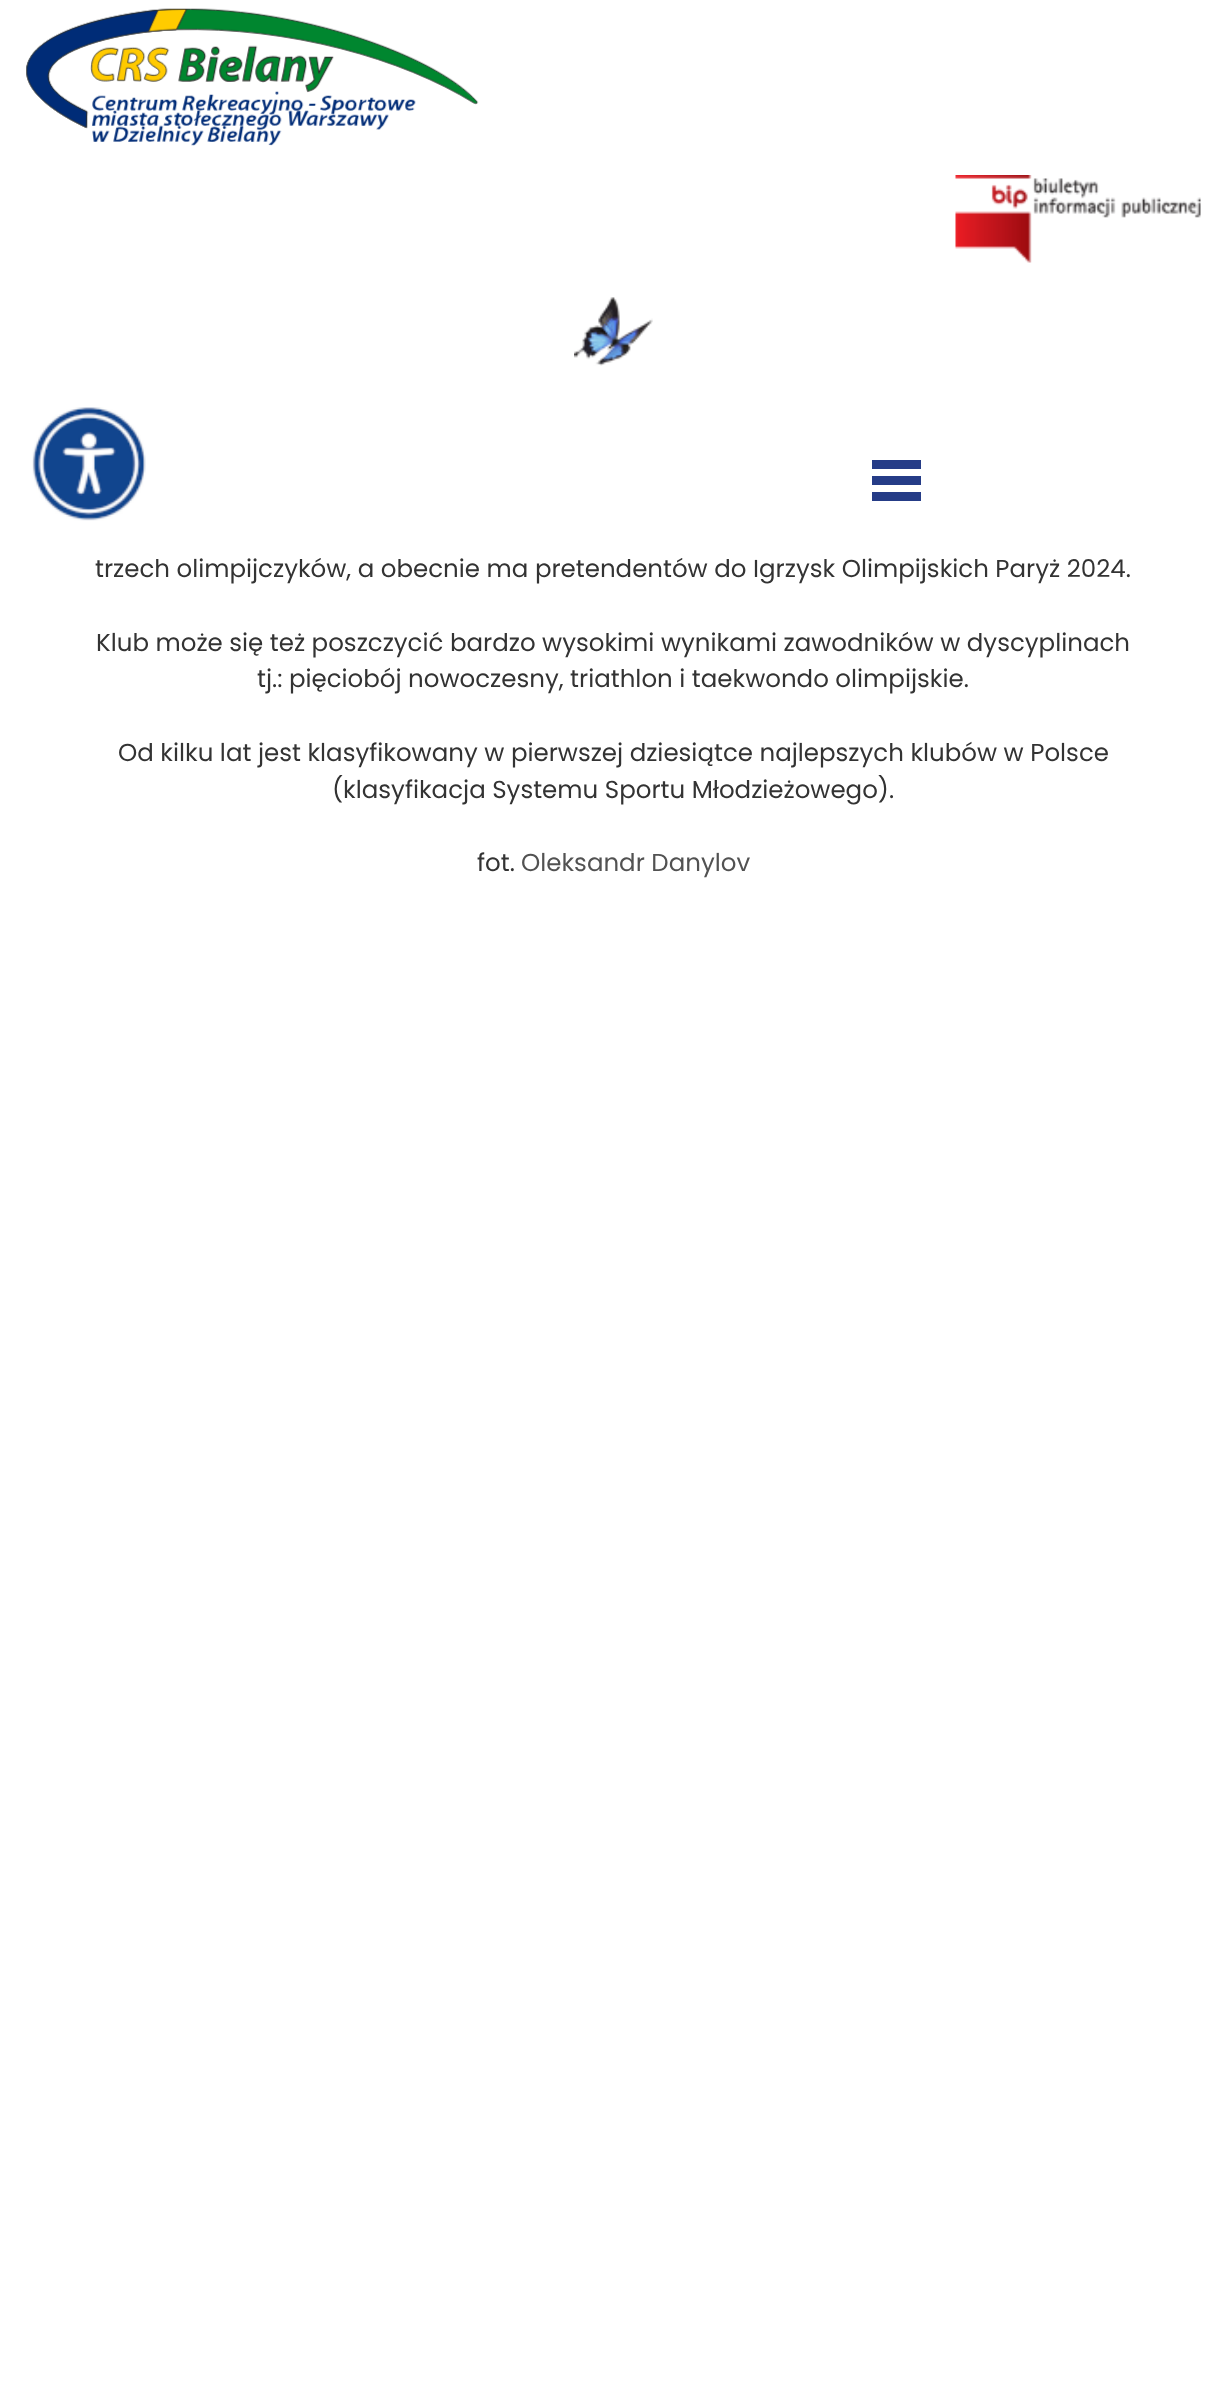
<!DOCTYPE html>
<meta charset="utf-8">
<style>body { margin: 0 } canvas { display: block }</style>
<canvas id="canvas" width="1226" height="2381"></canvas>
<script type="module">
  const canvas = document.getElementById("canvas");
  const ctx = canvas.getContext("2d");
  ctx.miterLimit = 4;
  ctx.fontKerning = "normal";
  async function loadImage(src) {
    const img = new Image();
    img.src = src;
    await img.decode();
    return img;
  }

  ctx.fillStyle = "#ffffff";
  ctx.fillRect(0, 0, 1226, 2381);
  ctx.font = "24.5px Poppins";
  ctx.fillStyle = "#333333";
  ctx.fillText("trzech olimpijczyków, a obecnie ma pretendentów do Igrzysk Olimpijskich Paryż 2024.", 95, 577);
  ctx.fillStyle = "#ffffff";
  ctx.fillRect(320, 557, 363, 1);
  ctx.drawImage(await loadImage("img1.png"), 26, 8, 453, 138);
  ctx.drawImage(await loadImage("img2.png"), 955, 175, 246, 88);
  ctx.drawImage(await loadImage("img3.png"), 574, 297, 79, 69);
  ctx.drawImage(await loadImage("img4.png"), 32, 407, 114, 114);
  ctx.fillStyle = "#253c87";
  ctx.fillRect(872, 476, 49, 9);
  ctx.fillRect(872, 460, 49, 9);
  ctx.fillRect(872, 492, 49, 9);
  ctx.fillStyle = "#333333";
  ctx.fillText("Klub może się też poszczycić bardzo wysokimi wynikami zawodników w dyscyplinach", 96, 651);
  ctx.fillText("tj.: pięciobój nowoczesny, triathlon i taekwondo olimpijskie.", 257, 687);
  ctx.fillText("Od kilku lat jest klasyfikowany w pierwszej dziesiątce najlepszych klubów w Polsce", 118, 761);
  ctx.fillText("(klasyfikacja Systemu Sportu Młodzieżowego).", 332, 798);
  ctx.fillText("fot.", 477, 871);
  ctx.fillStyle = "#525252";
  ctx.fillText("Oleksandr Danylov", 521, 871);
</script>
